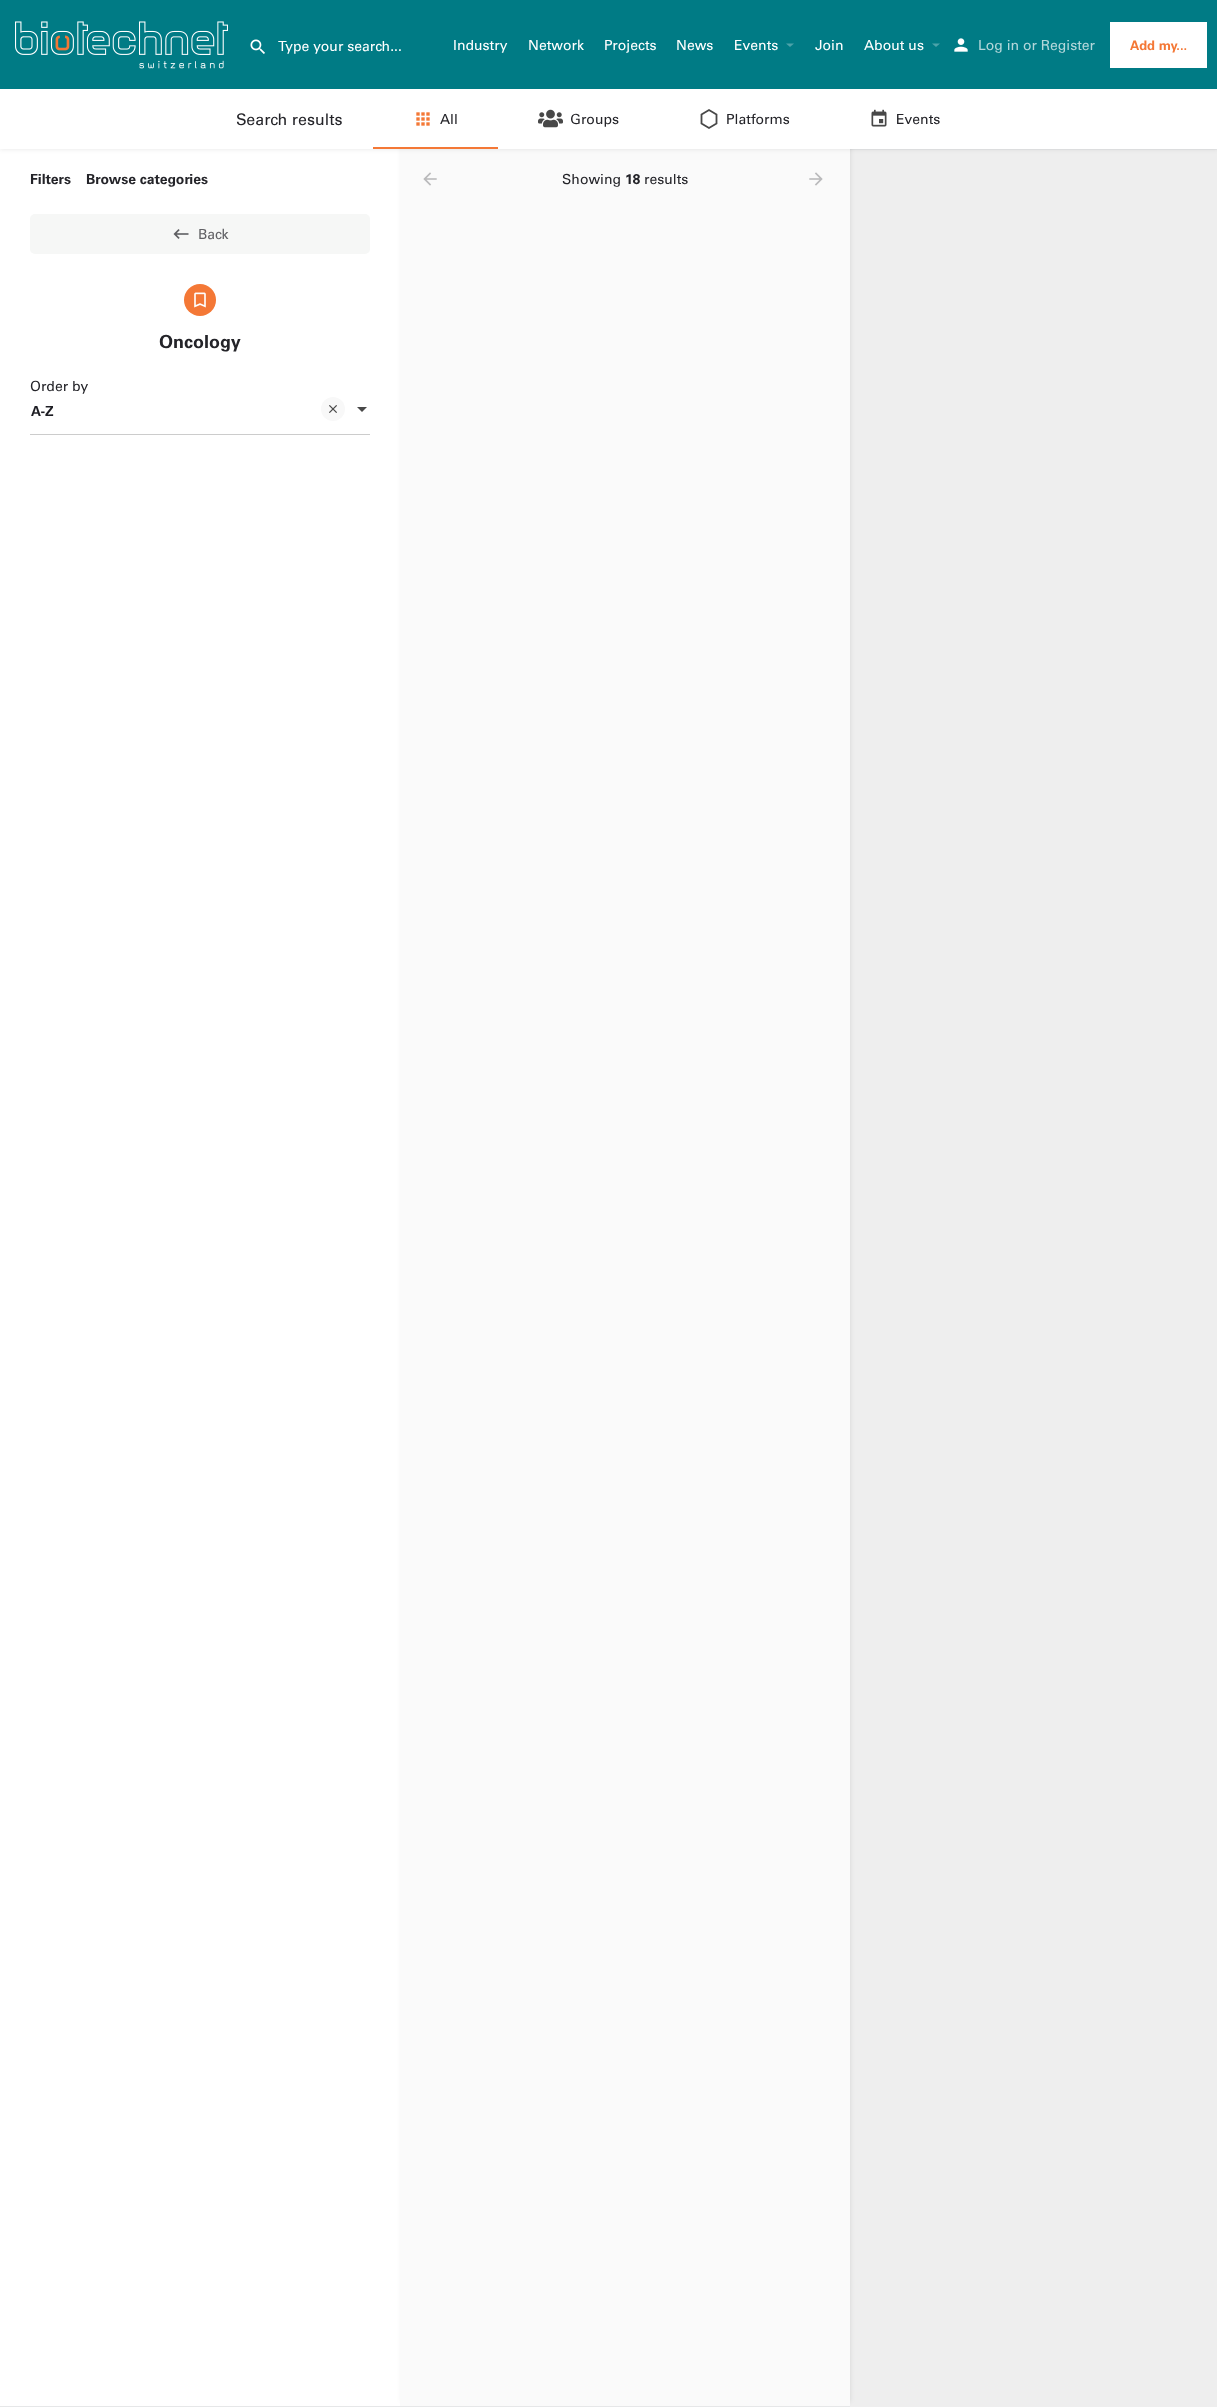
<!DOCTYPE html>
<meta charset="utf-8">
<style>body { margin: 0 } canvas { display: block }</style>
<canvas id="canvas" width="1217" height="2407"></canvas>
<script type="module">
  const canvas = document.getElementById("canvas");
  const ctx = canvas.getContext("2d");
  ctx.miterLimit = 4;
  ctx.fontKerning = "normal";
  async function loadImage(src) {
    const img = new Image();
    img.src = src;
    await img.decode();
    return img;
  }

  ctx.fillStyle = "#e6e7e8";
  ctx.fillRect(0, 0, 1217, 2407);
  ctx.fillStyle = "#ffffff";
  ctx.fillRect(0, 149, 400, 2257);
  ctx.fillStyle = "#eeeeee";
  ctx.fillRect(850, 150, 367, 2257);
  ctx.fillStyle = "rgba(0, 0, 0, 0.07)";
  ctx.filter = "blur(2px)";
  ctx.beginPath();
  ctx.rect(401, 145, 450, 2257);
  ctx.fill();
  ctx.filter = "none";
  ctx.fillStyle = "#fafafa";
  ctx.fillRect(400, 149, 450, 2257);
  ctx.fillStyle = "rgba(0, 0, 0, 0.07)";
  ctx.filter = "blur(2px)";
  ctx.beginPath();
  ctx.rect(0, 90, 1217, 60);
  ctx.fill();
  ctx.filter = "none";
  ctx.fillStyle = "#007b85";
  ctx.fillRect(0, 0, 1217, 89);
  ctx.drawImage(await loadImage("img1.png"), 15, 21, 213, 48);
  ctx.drawImage(await loadImage("img2.png"), 250, 39, 15, 15);
  ctx.font = "14px Univers";
  ctx.fillStyle = "#ffffff";
  ctx.fillText("Type your search...", 278, 51);
  ctx.fillText("Industry", 453, 50);
  ctx.fillText("Network", 528, 50);
  ctx.fillText("Projects", 604, 50);
  ctx.fillText("News", 676, 50);
  ctx.fillText("Events", 734, 50);
  ctx.fillStyle = "#4da3aa";
  ctx.beginPath();
  ctx.moveTo(786, 43.5);
  ctx.lineTo(794, 43.5);
  ctx.lineTo(790, 47);
  ctx.closePath();
  ctx.fill();
  ctx.fillStyle = "#ffffff";
  ctx.fillText("Join", 815, 50);
  ctx.fillText("About us", 864, 50);
  ctx.fillStyle = "#4da3aa";
  ctx.beginPath();
  ctx.moveTo(932, 43.5);
  ctx.lineTo(940, 43.5);
  ctx.lineTo(936, 47);
  ctx.closePath();
  ctx.fill();
  ctx.drawImage(await loadImage("img3.png"), 954, 38, 14, 14);
  ctx.fillStyle = "#b3d7da";
  ctx.fillText("Log in or Register", 978, 50);
  ctx.fillStyle = "#ffffff";
  ctx.fillRect(1110, 22, 97, 46);
  ctx.font = "bold 13px Univers";
  ctx.fillStyle = "#f47836";
  ctx.fillText("Add my...", 1130, 50);
  ctx.fillStyle = "#ffffff";
  ctx.fillRect(0, 89, 1217, 60);
  ctx.font = "16px Univers";
  ctx.fillStyle = "#242429";
  ctx.fillText("Search results", 236, 125);
  ctx.drawImage(await loadImage("img4.png"), 416, 112, 14, 14);
  ctx.font = "14px Univers";
  ctx.fillText("All", 440, 124);
  ctx.fillStyle = "#f47836";
  ctx.fillRect(373, 147, 125, 2);
  ctx.drawImage(await loadImage("img5.png"), 538, 109, 25, 19);
  ctx.fillStyle = "#242429";
  ctx.fillText("Groups", 570, 124);
  ctx.beginPath();
  ctx.moveTo(701.5, 114.5);
  ctx.lineTo(701.5, 123.5);
  ctx.lineTo(709, 128);
  ctx.lineTo(716.5, 123.5);
  ctx.lineTo(716.5, 114.5);
  ctx.lineTo(709, 110);
  ctx.closePath();
  ctx.strokeStyle = "#484848";
  ctx.lineWidth = 1.8;
  ctx.stroke();
  ctx.fillText("Platforms", 726, 124);
  ctx.drawImage(await loadImage("img6.png"), 871, 109, 16, 18);
  ctx.fillText("Events", 896, 124);
  ctx.font = "bold 14px Univers";
  ctx.fillText("Filters", 30, 184);
  ctx.fillText("Browse categories", 86, 184);
  ctx.fillStyle = "#f6f7f6";
  ctx.beginPath();
  ctx.roundRect(30, 214, 340, 40, 5);
  ctx.fill();
  ctx.drawImage(await loadImage("img7.png"), 173, 229, 16, 10);
  ctx.font = "14px Univers";
  ctx.fillStyle = "#616165";
  ctx.fillText("Back", 198, 239);
  ctx.fillStyle = "#f47836";
  ctx.beginPath();
  ctx.arc(200, 300, 16, 0, Math.PI * 2);
  ctx.fill();
  ctx.drawImage(await loadImage("img8.png"), 194, 292, 12, 16);
  ctx.font = "bold 18px Univers";
  ctx.fillStyle = "#242429";
  ctx.fillText("Oncology", 159, 348);
  ctx.font = "14px Univers";
  ctx.fillText("Order by", 30, 391);
  ctx.fillStyle = "#cccccc";
  ctx.fillRect(30, 434, 340, 1);
  ctx.font = "bold 14px Univers";
  ctx.fillStyle = "#1d1d23";
  ctx.fillText("A-Z", 31, 416);
  ctx.fillStyle = "#f8f8f8";
  ctx.beginPath();
  ctx.arc(333, 409, 12, 0, Math.PI * 2);
  ctx.fill();
  ctx.drawImage(await loadImage("img9.png"), 329, 405, 8, 8);
  ctx.fillStyle = "#484848";
  ctx.beginPath();
  ctx.moveTo(357, 407);
  ctx.lineTo(367, 407);
  ctx.lineTo(362, 412);
  ctx.closePath();
  ctx.fill();
  ctx.drawImage(await loadImage("img10.png"), 423, 172, 14, 14);
  ctx.font = "14px Univers";
  ctx.fillStyle = "#242429";
  ctx.fillText("Showing", 562, 184);
  ctx.font = "bold 14px Univers";
  ctx.fillText("18", 625, 184);
  ctx.font = "14px Univers";
  ctx.fillText("results", 644, 184);
  ctx.drawImage(await loadImage("img11.png"), 809, 172, 14, 14);
</script>
